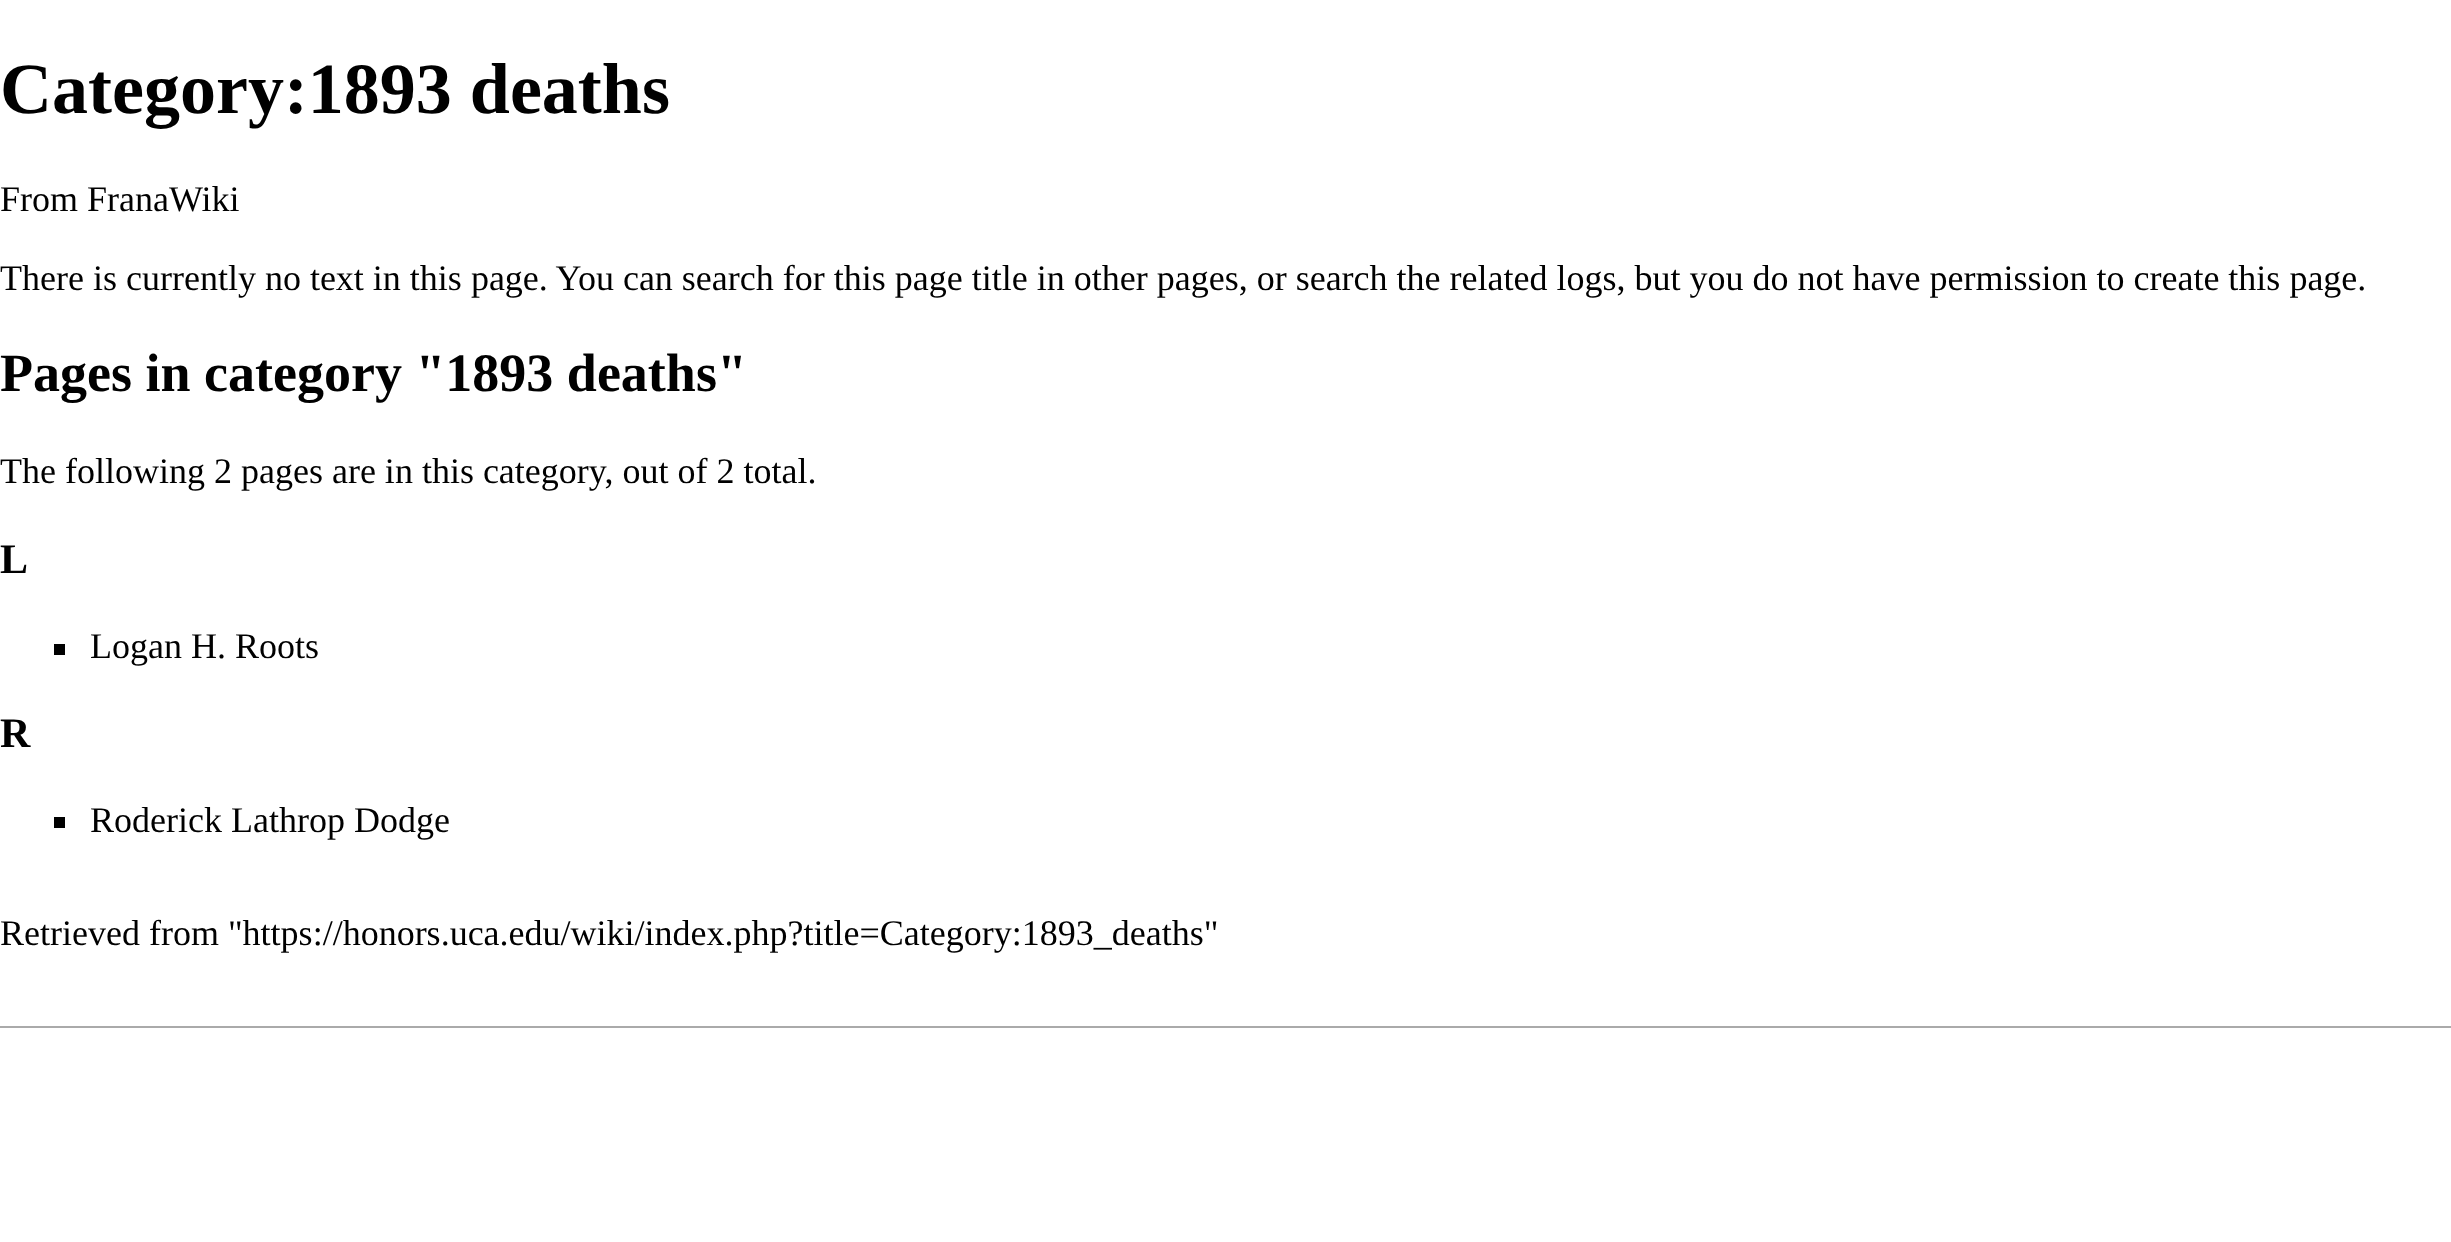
<!DOCTYPE html>
<meta charset="utf-8">
<style>body { margin: 0 } canvas { display: block }</style>
<canvas id="canvas" width="2451" height="1242"></canvas>
<script type="module">
  const canvas = document.getElementById("canvas");
  const ctx = canvas.getContext("2d");
  ctx.miterLimit = 4;
  ctx.fontKerning = "normal";

  ctx.fillStyle = "#ffffff";
  ctx.fillRect(0, 0, 2451, 1242);
  ctx.font = "bold 72px Liberation Serif";
  ctx.fillStyle = "#000000";
  ctx.fillText("Category:1893 deaths", 0, 113);
  ctx.font = "36px Liberation Serif";
  ctx.fillText("From FranaWiki", 0, 211);
  ctx.fillText("There is currently no text in this page. You can search for this page title in other pages, or search the related logs, but you do not have permission to create this page.", 0, 290);
  ctx.font = "bold 54px Liberation Serif";
  ctx.fillText("Pages in category \"1893 deaths\"", 0, 391);
  ctx.font = "36px Liberation Serif";
  ctx.fillText("The following 2 pages are in this category, out of 2 total.", 0, 483);
  ctx.font = "bold 42px Liberation Serif";
  ctx.fillText("L", 0, 573);
  ctx.fillRect(54, 644, 11, 11);
  ctx.font = "36px Liberation Serif";
  ctx.fillText("Logan H. Roots", 90, 658);
  ctx.font = "bold 42px Liberation Serif";
  ctx.fillText("R", 0, 747);
  ctx.fillRect(54, 817, 11, 11);
  ctx.font = "36px Liberation Serif";
  ctx.fillText("Roderick Lathrop Dodge", 90, 832);
  ctx.fillText("Retrieved from \"https://honors.uca.edu/wiki/index.php?title=Category:1893_deaths\"", 0, 945);
  ctx.fillStyle = "#aaaaaa";
  ctx.fillRect(0, 1026, 2451, 2);
</script>
